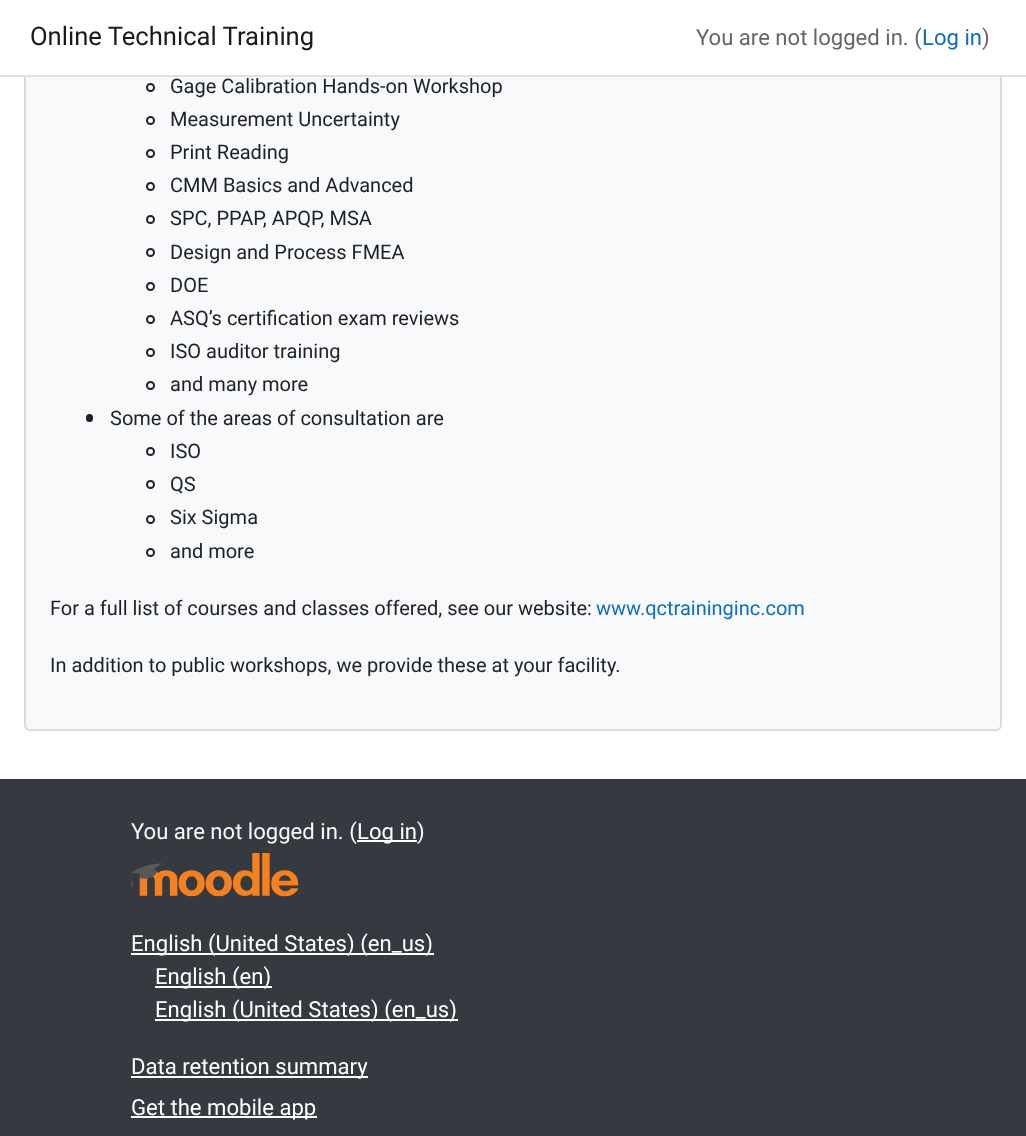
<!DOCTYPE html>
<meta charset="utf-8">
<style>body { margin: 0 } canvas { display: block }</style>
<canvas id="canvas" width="1026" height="1136"></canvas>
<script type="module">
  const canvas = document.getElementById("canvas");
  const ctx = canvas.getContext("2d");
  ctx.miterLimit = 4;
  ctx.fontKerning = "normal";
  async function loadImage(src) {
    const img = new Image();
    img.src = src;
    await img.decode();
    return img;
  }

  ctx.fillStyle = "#ffffff";
  ctx.fillRect(0, 0, 1026, 1136);
  ctx.fillStyle = "#f8f9fa";
  ctx.beginPath();
  ctx.roundRect(25, -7, 976, 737, 5);
  ctx.fill();
  ctx.strokeStyle = "#d9dadb";
  ctx.lineWidth = 2;
  ctx.stroke();
  ctx.fillStyle = "#ffffff";
  ctx.fillRect(24, 0, 978, 75);
  ctx.fillStyle = "#dee2e6";
  ctx.fillRect(0, 75, 1026, 2);
  ctx.font = "25.6px Roboto";
  ctx.fillStyle = "#1a1a1a";
  ctx.fillText("Online Technical Training", 30, 45);
  ctx.font = "22.1px Roboto";
  ctx.fillStyle = "#666666";
  ctx.fillText("You are not logged in. (", 696, 45);
  ctx.fillStyle = "#0f6cbf";
  ctx.fillText("Log in", 922, 45);
  ctx.fillStyle = "#666666";
  ctx.fillText(")", 982, 45);
  ctx.beginPath();
  ctx.arc(150.5, 87.5, 3.5, 0, Math.PI * 2);
  ctx.strokeStyle = "#1d2125";
  ctx.stroke();
  ctx.font = "20px Roboto";
  ctx.fillStyle = "#1d2125";
  ctx.fillText("Gage Calibration Hands-on Workshop", 170, 93);
  ctx.beginPath();
  ctx.arc(150.5, 120.5, 3.5, 0, Math.PI * 2);
  ctx.stroke();
  ctx.fillText("Measurement Uncertainty", 170, 126);
  ctx.beginPath();
  ctx.arc(150.5, 153.5, 3.5, 0, Math.PI * 2);
  ctx.stroke();
  ctx.fillText("Print Reading", 170, 159);
  ctx.beginPath();
  ctx.arc(150.5, 186.5, 3.5, 0, Math.PI * 2);
  ctx.stroke();
  ctx.fillText("CMM Basics and Advanced", 170, 192);
  ctx.beginPath();
  ctx.arc(150.5, 219.5, 3.5, 0, Math.PI * 2);
  ctx.stroke();
  ctx.fillText("SPC, PPAP, APQP, MSA", 170, 225);
  ctx.beginPath();
  ctx.arc(150.5, 252.5, 3.5, 0, Math.PI * 2);
  ctx.stroke();
  ctx.fillText("Design and Process FMEA", 170, 259);
  ctx.beginPath();
  ctx.arc(150.5, 286.5, 3.5, 0, Math.PI * 2);
  ctx.stroke();
  ctx.fillText("DOE", 170, 292);
  ctx.beginPath();
  ctx.arc(150.5, 319.5, 3.5, 0, Math.PI * 2);
  ctx.stroke();
  ctx.fillText("ASQ’s certification exam reviews", 170, 325);
  ctx.beginPath();
  ctx.arc(150.5, 352.5, 3.5, 0, Math.PI * 2);
  ctx.stroke();
  ctx.fillText("ISO auditor training", 170, 358);
  ctx.beginPath();
  ctx.arc(150.5, 385.5, 3.5, 0, Math.PI * 2);
  ctx.stroke();
  ctx.fillText("and many more", 170, 391);
  ctx.beginPath();
  ctx.roundRect(86, 414, 7, 8, 3.5);
  ctx.fill();
  ctx.fillText("Some of the areas of consultation are", 110, 425);
  ctx.beginPath();
  ctx.arc(150.5, 451.5, 3.5, 0, Math.PI * 2);
  ctx.stroke();
  ctx.fillText("ISO", 170, 458);
  ctx.beginPath();
  ctx.arc(150.5, 484.5, 3.5, 0, Math.PI * 2);
  ctx.stroke();
  ctx.fillText("QS", 170, 491);
  ctx.beginPath();
  ctx.arc(150.5, 519.5, 3.5, 0, Math.PI * 2);
  ctx.stroke();
  ctx.fillText("Six Sigma", 170, 524);
  ctx.beginPath();
  ctx.arc(150.5, 552.5, 3.5, 0, Math.PI * 2);
  ctx.stroke();
  ctx.fillText("and more", 170, 558);
  ctx.fillText("For a full list of courses and classes offered, see our website:", 50, 615);
  ctx.fillStyle = "#0f6cbf";
  ctx.fillText("www.qctraininginc.com", 596, 615);
  ctx.fillStyle = "#1d2125";
  ctx.fillText("In addition to public workshops, we provide these at your facility.", 50, 672);
  ctx.fillStyle = "#343a40";
  ctx.fillRect(0, 779, 1026, 357);
  ctx.font = "22.1px Roboto";
  ctx.fillStyle = "#f8f9fa";
  ctx.fillText("You are not logged in. (", 131, 839);
  ctx.fillStyle = "#ffffff";
  ctx.fillRect(357, 840, 60, 2);
  ctx.fillText("Log in", 357, 839);
  ctx.fillStyle = "#f8f9fa";
  ctx.fillText(")", 417, 839);
  ctx.drawImage(await loadImage("img1.png"), 131, 853, 168, 44);
  ctx.fillStyle = "#ffffff";
  ctx.fillRect(131, 953, 303, 2);
  ctx.fillText("English (United States) (en_us)", 131, 951);
  ctx.fillRect(155, 986, 117, 2);
  ctx.fillText("English (en)", 155, 984);
  ctx.fillRect(155, 1019, 303, 2);
  ctx.fillText("English (United States) (en_us)", 155, 1017);
  ctx.fillRect(131, 1076, 237, 2);
  ctx.fillText("Data retention summary", 131, 1074);
  ctx.fillRect(131, 1116, 186, 2);
  ctx.fillText("Get the mobile app", 131, 1115);
</script>
